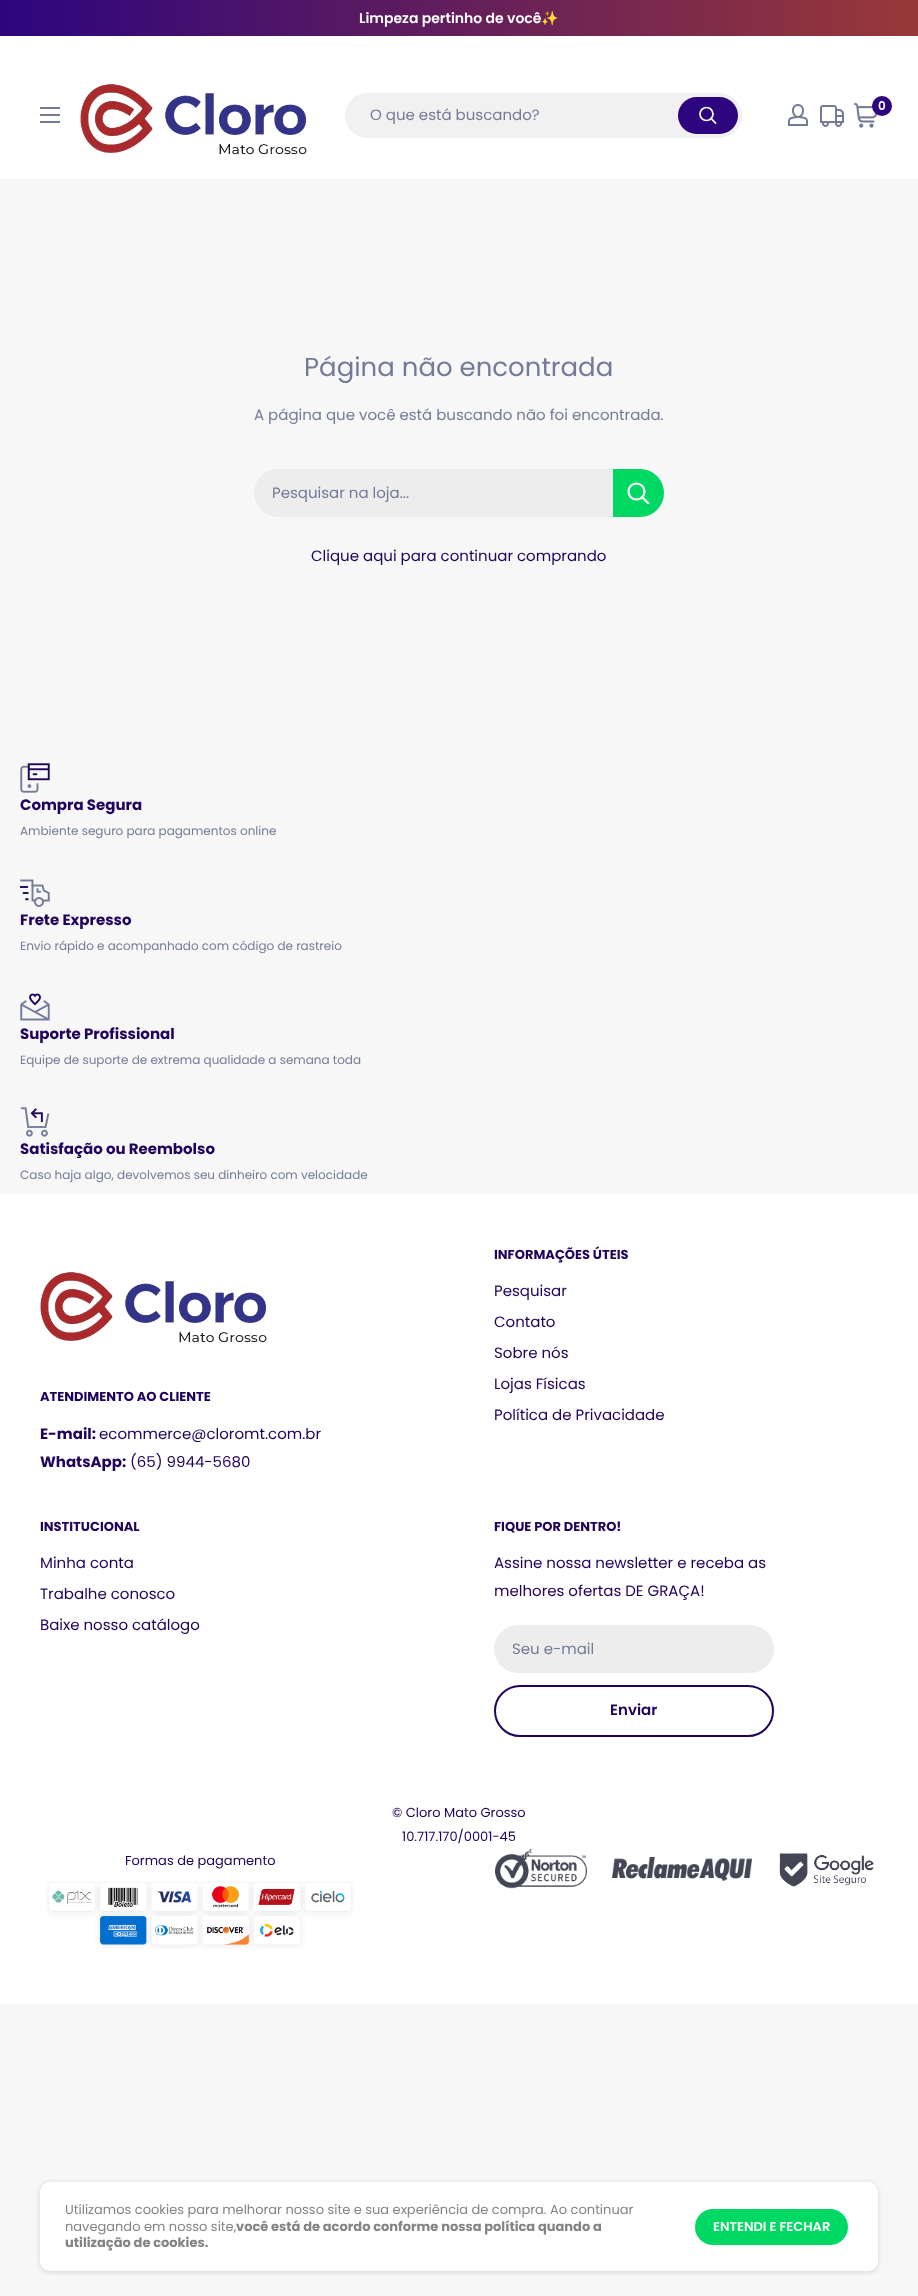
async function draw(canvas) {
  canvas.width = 918
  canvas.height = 2296
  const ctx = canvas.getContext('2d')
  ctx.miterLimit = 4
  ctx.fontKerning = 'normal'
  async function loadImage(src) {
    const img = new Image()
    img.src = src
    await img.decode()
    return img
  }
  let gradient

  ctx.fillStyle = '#f7f7f7'
  ctx.fillRect(0, 0, 918, 2296)
  gradient = ctx.createLinearGradient(0, 18, 918, 18)
  gradient.addColorStop(0, '#2d057e')
  gradient.addColorStop(1, '#993838')
  ctx.fillStyle = gradient
  ctx.fillRect(0, 0, 918, 36)
  ctx.font = '600 14px Poppins'
  ctx.fillStyle = '#fff'
  ctx.fillText('Limpeza pertinho de você', 359, 23)
  ctx.font = 'bold 14px Noto Color Emoji'
  ctx.fillText('✨', 541, 23)
  ctx.fillRect(0, 36, 918, 143)
  ctx.drawImage(await loadImage('image0.png'), 80, 84, 227, 71)
  ctx.drawImage(await loadImage('image1.png'), 788, 104, 20, 22)
  ctx.drawImage(await loadImage('image2.png'), 820, 105, 24, 22)
  ctx.drawImage(await loadImage('image3.png'), 854, 103, 24, 25)
  ctx.fillStyle = '#2d057e'
  ctx.beginPath()
  ctx.arc(882, 106, 10, 0, 2 * Math.PI)
  ctx.fill()
  ctx.font = '600 12px Poppins'
  ctx.fillStyle = '#fff'
  ctx.fillText('0', 878, 110)
  ctx.drawImage(await loadImage('image4.png'), 40, 107, 20, 16)
  ctx.fillStyle = '#f1f1f1'
  ctx.beginPath()
  ctx.roundRect(345, 93, 397, 45, 22.5)
  ctx.fill()
  ctx.font = '15px Poppins'
  ctx.fillStyle = '#737b97'
  ctx.fillText('O que está buscando?', 370, 120)
  ctx.fillStyle = '#2d057e'
  ctx.beginPath()
  ctx.roundRect(678, 97, 60, 37, 18.5)
  ctx.fill()
  ctx.beginPath()
  ctx.moveTo(715.5, 123)
  ctx.lineTo(711, 118.5)
  ctx.strokeStyle = '#fff'
  ctx.lineWidth = 1.7
  ctx.lineCap = 'square'
  ctx.stroke()
  ctx.beginPath()
  ctx.arc(706.5, 114, 6.5, 0, 2 * Math.PI)
  ctx.stroke()
  ctx.font = '26px Poppins'
  ctx.fillStyle = '#737b97'
  ctx.fillText('Página não encontrada', 304, 376)
  ctx.font = '15px Poppins'
  ctx.fillText('A página que você está buscando não foi encontrada.', 254, 420)
  ctx.fillStyle = '#ededed'
  ctx.beginPath()
  ctx.roundRect(254, 469, 359, 48, [24, 0, 0, 24])
  ctx.fill()
  ctx.fillStyle = '#737b97'
  ctx.fillText('Pesquisar na loja...', 272, 498)
  ctx.fillStyle = '#00d864'
  ctx.beginPath()
  ctx.roundRect(613, 469, 51, 48, [0, 24, 24, 0])
  ctx.fill()
  ctx.beginPath()
  ctx.moveTo(648, 503)
  ctx.lineTo(642.5, 497.5)
  ctx.lineWidth = 2.2
  ctx.stroke()
  ctx.beginPath()
  ctx.arc(636.5, 491.5, 8, 0, 2 * Math.PI)
  ctx.stroke()
  ctx.fillStyle = '#20035a'
  ctx.fillText('Clique aqui para continuar comprando', 311, 561)
  ctx.drawImage(await loadImage('image5.png'), 20, 763, 30, 30)
  ctx.font = 'bold 15px Poppins'
  ctx.fillText('Compra Segura', 20, 810)
  ctx.font = '12px Poppins'
  ctx.fillStyle = '#737b97'
  ctx.fillText('Ambiente seguro para pagamentos online', 20, 835)
  ctx.drawImage(await loadImage('image6.png'), 20, 879, 30, 28)
  ctx.font = 'bold 15px Poppins'
  ctx.fillStyle = '#20035a'
  ctx.fillText('Frete Expresso', 20, 925)
  ctx.font = '12px Poppins'
  ctx.fillStyle = '#737b97'
  ctx.fillText('Envio rápido e acompanhado com código de rastreio', 20, 950)
  ctx.drawImage(await loadImage('image7.png'), 20, 993, 30, 28)
  ctx.font = 'bold 15px Poppins'
  ctx.fillStyle = '#20035a'
  ctx.fillText('Suporte Profissional', 20, 1039)
  ctx.font = '12px Poppins'
  ctx.fillStyle = '#737b97'
  ctx.fillText('Equipe de suporte de extrema qualidade a semana toda', 20, 1064)
  ctx.drawImage(await loadImage('image8.png'), 20, 1107, 30, 30)
  ctx.font = 'bold 15px Poppins'
  ctx.fillStyle = '#20035a'
  ctx.fillText('Satisfação ou Reembolso', 20, 1154)
  ctx.font = '12px Poppins'
  ctx.fillStyle = '#737b97'
  ctx.fillText('Caso haja algo, devolvemos seu dinheiro com velocidade', 20, 1179)
  ctx.fillStyle = '#fff'
  ctx.fillRect(0, 1194, 918, 810)
  ctx.font = 'bold 13px Poppins'
  ctx.fillStyle = '#20035a'
  ctx.fillText('INFORMAÇÕES ÚTEIS', 494, 1259)
  ctx.font = '15px Poppins'
  ctx.fillText('Pesquisar', 494, 1296)
  ctx.fillText('Contato', 494, 1327)
  ctx.fillText('Sobre nós', 494, 1358)
  ctx.fillText('Lojas Físicas', 494, 1389)
  ctx.fillText('Política de Privacidade', 494, 1420)
  ctx.drawImage(await loadImage('image9.png'), 40, 1272, 227, 71)
  ctx.font = 'bold 13px Poppins'
  ctx.fillText('ATENDIMENTO AO CLIENTE', 40, 1401)
  ctx.font = 'bold 15px Poppins'
  ctx.fillText('E-mail:', 40, 1439)
  ctx.font = '15px Poppins'
  ctx.fillText('ecommerce@cloromt.com.br', 99, 1439)
  ctx.font = 'bold 15px Poppins'
  ctx.fillText('WhatsApp:', 40, 1467)
  ctx.font = '15px Poppins'
  ctx.fillText('(65) 9944-5680', 130, 1467)
  ctx.font = 'bold 13px Poppins'
  ctx.fillText('INSTITUCIONAL', 40, 1531)
  ctx.font = '15px Poppins'
  ctx.fillText('Minha conta', 40, 1568)
  ctx.fillText('Trabalhe conosco', 40, 1599)
  ctx.fillText('Baixe nosso catálogo', 40, 1630)
  ctx.font = 'bold 13px Poppins'
  ctx.fillText('FIQUE POR DENTRO!', 494, 1531)
  ctx.font = '15px Poppins'
  ctx.fillText('Assine nossa newsletter e receba as', 494, 1568)
  ctx.fillText('melhores ofertas DE GRAÇA!', 494, 1596)
  ctx.fillStyle = '#ededed'
  ctx.beginPath()
  ctx.roundRect(494, 1625, 280, 48, 24)
  ctx.fill()
  ctx.fillStyle = '#737b97'
  ctx.fillText('Seu e-mail', 512, 1654)
  ctx.beginPath()
  ctx.roundRect(495, 1686, 278, 50, 25)
  ctx.strokeStyle = '#20035a'
  ctx.lineWidth = 2
  ctx.stroke()
  ctx.font = '600 15px Poppins'
  ctx.fillStyle = '#20035a'
  ctx.fillText('Enviar', 610, 1715)
  ctx.font = '13px Poppins'
  ctx.fillText('© Cloro Mato Grosso', 392, 1817)
  ctx.fillText('10.717.170/0001-45', 402, 1841)
  ctx.fillText('Formas de pagamento', 125, 1865)
  ctx.drawImage(await loadImage('image10.png'), 46, 1881, 308, 68)
  ctx.drawImage(await loadImage('image11.png'), 495, 1849, 92, 40)
  ctx.drawImage(await loadImage('image12.png'), 612, 1857, 140, 24)
  ctx.drawImage(await loadImage('image13.png'), 779, 1853, 95, 34)
  ctx.fillStyle = '#0000001a'
  ctx.filter = 'blur(2px)'
  ctx.beginPath()
  ctx.roundRect(39, 2182, 840, 91, 11)
  ctx.fill()
  ctx.filter = 'none'
  ctx.fillStyle = '#fff'
  ctx.beginPath()
  ctx.roundRect(40, 2182, 838, 89, 10)
  ctx.fill()
  ctx.fillStyle = '#838383'
  ctx.fillText('Utilizamos cookies para melhorar nosso site e sua experiência de compra. Ao continuar', 65, 2214)
  ctx.fillText('navegando em nosso site,', 65, 2231)
  ctx.font = 'bold 13px Poppins'
  ctx.fillText('você está de acordo conforme nossa política quando a', 236, 2231)
  ctx.fillText('utilização de cookies.', 65, 2247)
  ctx.fillStyle = '#00d864'
  ctx.beginPath()
  ctx.roundRect(695, 2209, 153, 36, 18)
  ctx.fill()
  ctx.font = '600 13px Poppins'
  ctx.fillStyle = '#fff'
  ctx.fillText('ENTENDI E FECHAR', 713, 2231)
}

draw(document.querySelector('canvas'))
